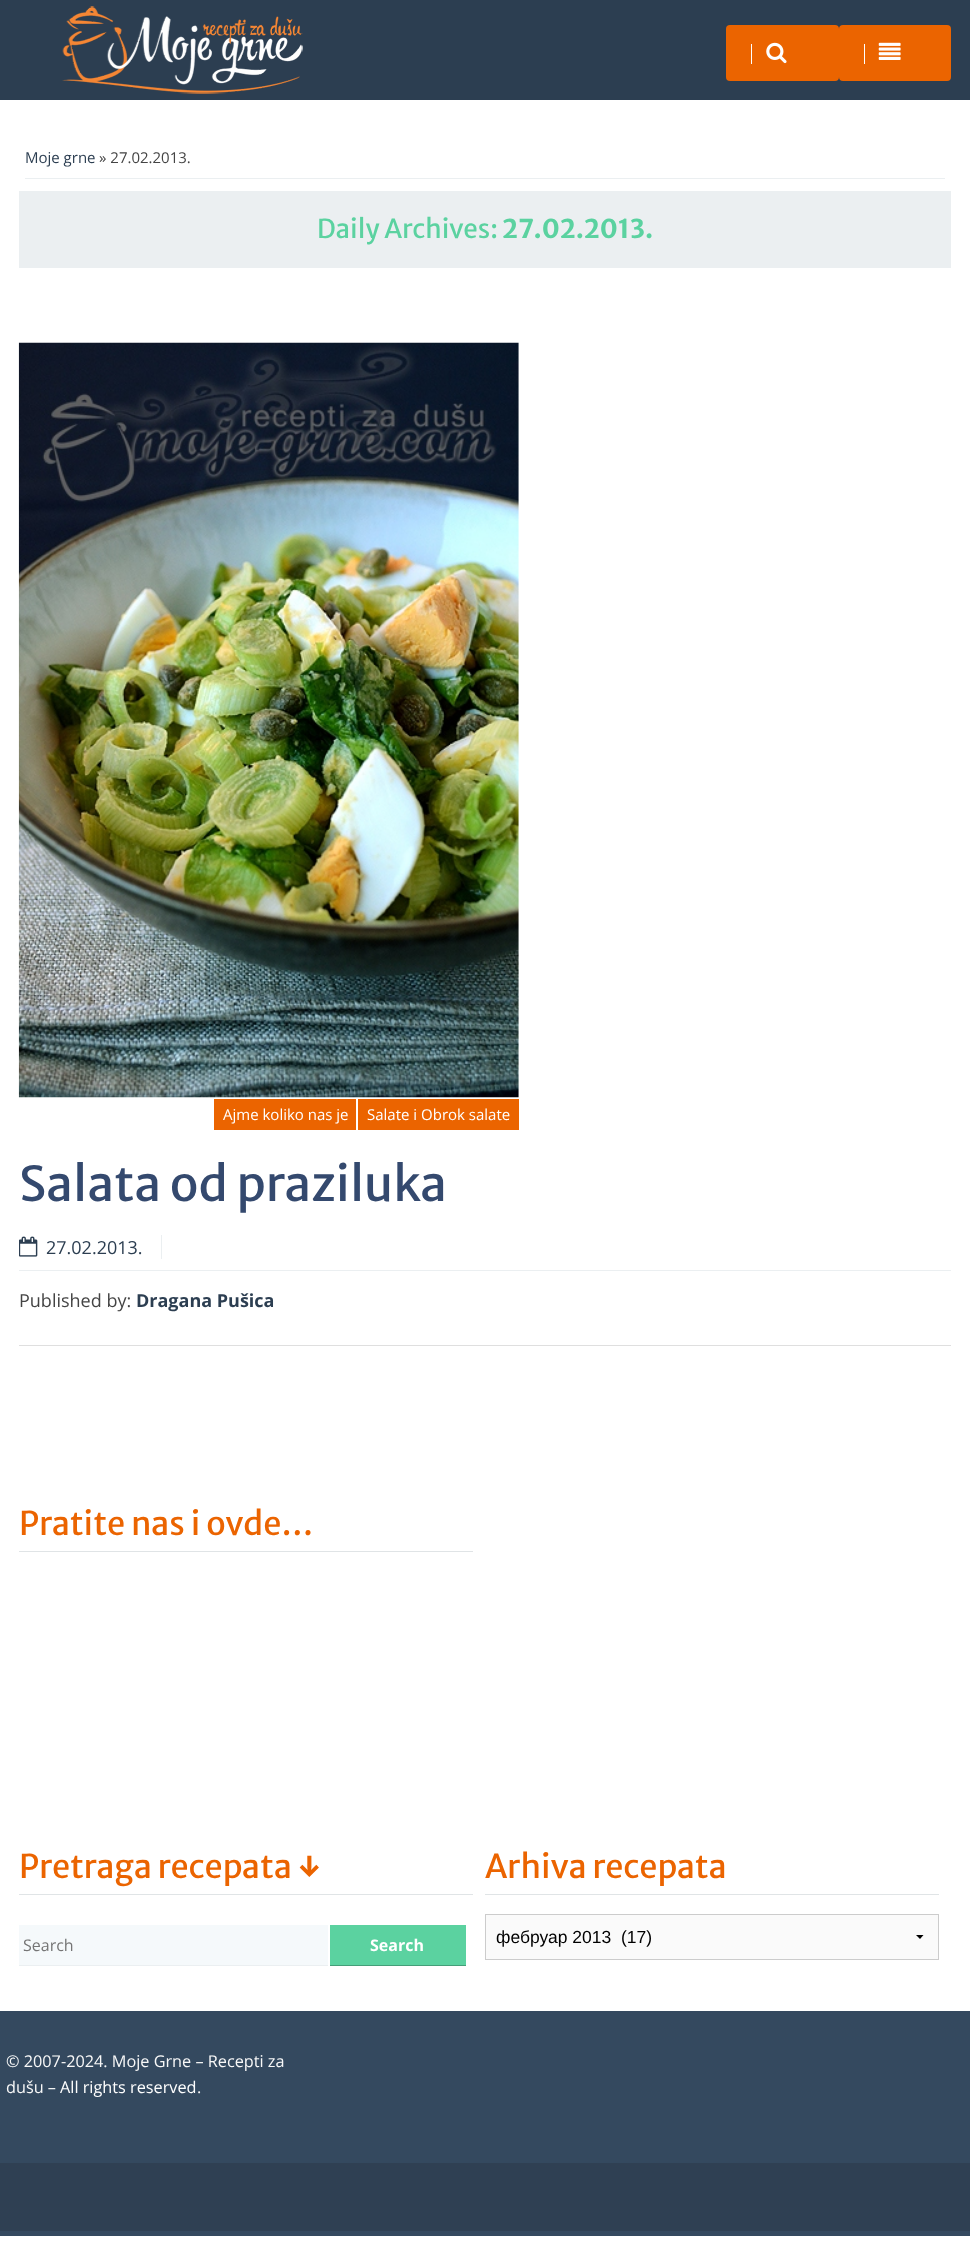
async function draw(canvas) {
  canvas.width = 970
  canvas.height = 2256
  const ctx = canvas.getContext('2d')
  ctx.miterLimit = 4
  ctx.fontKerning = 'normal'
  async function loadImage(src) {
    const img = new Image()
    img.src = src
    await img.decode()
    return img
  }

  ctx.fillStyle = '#fff'
  ctx.fillRect(0, 0, 970, 2256)
  ctx.fillStyle = '#2c3e51'
  ctx.fillRect(0, 0, 970, 100)
  ctx.drawImage(await loadImage('image0.png'), 62, 6, 241, 88)
  ctx.fillStyle = '#eb6400'
  ctx.beginPath()
  ctx.roundRect(726, 25, 113, 56, 4)
  ctx.fill()
  ctx.fillStyle = '#fff'
  ctx.fillRect(751, 44, 1, 20)
  ctx.drawImage(await loadImage('image1.png'), 766, 42, 21, 22)
  ctx.fillStyle = '#eb6400'
  ctx.beginPath()
  ctx.roundRect(839, 25, 112, 56, 4)
  ctx.fill()
  ctx.fillStyle = '#fff'
  ctx.fillRect(864, 44, 1, 20)
  ctx.drawImage(await loadImage('image2.png'), 878, 42, 23, 18)
  ctx.fillStyle = '#ebeff1'
  ctx.fillRect(25, 178, 920, 1)
  ctx.font = '15px Open Sans'
  ctx.fillStyle = '#2c3e51'
  ctx.fillText('Moje grne', 25, 163)
  ctx.fillStyle = '#444'
  ctx.fillText('» 27.02.2013.', 99, 163)
  ctx.fillStyle = '#ebeff1'
  ctx.fillRect(19, 191, 932, 77)
  ctx.font = '26px Merriweather Sans'
  ctx.fillStyle = '#5bd2a0'
  ctx.fillText('Daily Archives:', 317, 238)
  ctx.font = 'bold 26px Merriweather Sans'
  ctx.fillText('27.02.2013.', 502, 238)
  ctx.drawImage(await loadImage('image3.png'), 18, 342, 501, 756)
  ctx.fillStyle = '#eb6400'
  ctx.fillRect(214, 1099, 142, 31)
  ctx.font = '15px Open Sans'
  ctx.fillStyle = '#fff'
  ctx.fillText('Ajme koliko nas je', 223, 1120)
  ctx.fillStyle = '#eb6400'
  ctx.fillRect(358, 1099, 161, 31)
  ctx.fillStyle = '#fff'
  ctx.fillText('Salate i Obrok salate', 367, 1120)
  ctx.font = '48px Merriweather Sans'
  ctx.fillStyle = '#34496e'
  ctx.fillText('Salata od praziluka', 19, 1201)
  ctx.fillStyle = '#ebeff1'
  ctx.fillRect(19, 1270, 932, 1)
  ctx.fillRect(161, 1235, 1, 24)
  ctx.drawImage(await loadImage('image4.png'), 19, 1236, 19, 21)
  ctx.font = '18px Open Sans'
  ctx.fillStyle = '#2c3e51'
  ctx.fillText('27.02.2013.', 46, 1254)
  ctx.fillStyle = '#444'
  ctx.fillText('Published by:', 19, 1307)
  ctx.font = 'bold 18px Open Sans'
  ctx.fillStyle = '#2c3e51'
  ctx.fillText('Dragana Pušica', 136, 1307)
  ctx.fillStyle = '#dfdfdf'
  ctx.fillRect(19, 1345, 932, 1)
  ctx.fillStyle = '#e0e4e6'
  ctx.fillRect(19, 1551, 454, 1)
  ctx.font = '32.5px Merriweather Sans'
  ctx.fillStyle = '#eb6400'
  ctx.fillText('Pratite nas i ovde…', 19, 1535)
  ctx.fillStyle = '#e0e4e6'
  ctx.fillRect(19, 1894, 454, 1)
  ctx.fillStyle = '#eb6400'
  ctx.fillText('Pretraga recepata ↓', 19, 1878)
  ctx.fillStyle = '#f5f9fb'
  ctx.fillRect(19, 1925, 309, 40)
  ctx.fillStyle = '#ebeff1'
  ctx.fillRect(19, 1965, 309, 1)
  ctx.font = '16px Open Sans'
  ctx.fillStyle = '#757575'
  ctx.fillText('Search', 23, 1951)
  ctx.fillStyle = '#5bd2a0'
  ctx.fillRect(330, 1925, 136, 40)
  ctx.fillStyle = '#449e78'
  ctx.fillRect(330, 1965, 136, 1)
  ctx.font = 'bold 16px Open Sans'
  ctx.fillStyle = '#fff'
  ctx.fillText('Search', 370, 1951)
  ctx.fillStyle = '#e0e4e6'
  ctx.fillRect(485, 1894, 454, 1)
  ctx.font = '32.5px Merriweather Sans'
  ctx.fillStyle = '#eb6400'
  ctx.fillText('Arhiva recepata', 485, 1878)
  ctx.fillStyle = '#fafafa'
  ctx.fillRect(486, 1915, 452, 44)
  ctx.fillStyle = '#000'
  ctx.beginPath()
  ctx.moveTo(923.5, 1935)
  ctx.lineTo(920, 1939)
  ctx.lineTo(916, 1935)
  ctx.closePath()
  ctx.fill()
  ctx.strokeStyle = '#ccc'
  ctx.strokeRect(485.5, 1914.5, 453, 45)
  ctx.font = '17.5px Liberation Sans'
  ctx.fillText('фебруар 2013  (17)', 496, 1943)
  ctx.fillStyle = '#34495f'
  ctx.fillRect(0, 2011, 970, 225)
  ctx.font = '16.25px Open Sans'
  ctx.fillStyle = '#f8f8f8'
  ctx.fillText('© 2007-2024. Moje Grne – Recepti za', 6, 2067)
  ctx.fillText('dušu –', 6, 2093)
  ctx.fillStyle = '#fff'
  ctx.fillText('All rights reserved', 60, 2093)
  ctx.fillStyle = '#f8f8f8'
  ctx.fillText('.', 197, 2093)
  ctx.fillStyle = '#2f4053'
  ctx.fillRect(0, 2163, 970, 68)
}

draw(document.querySelector('canvas'))
